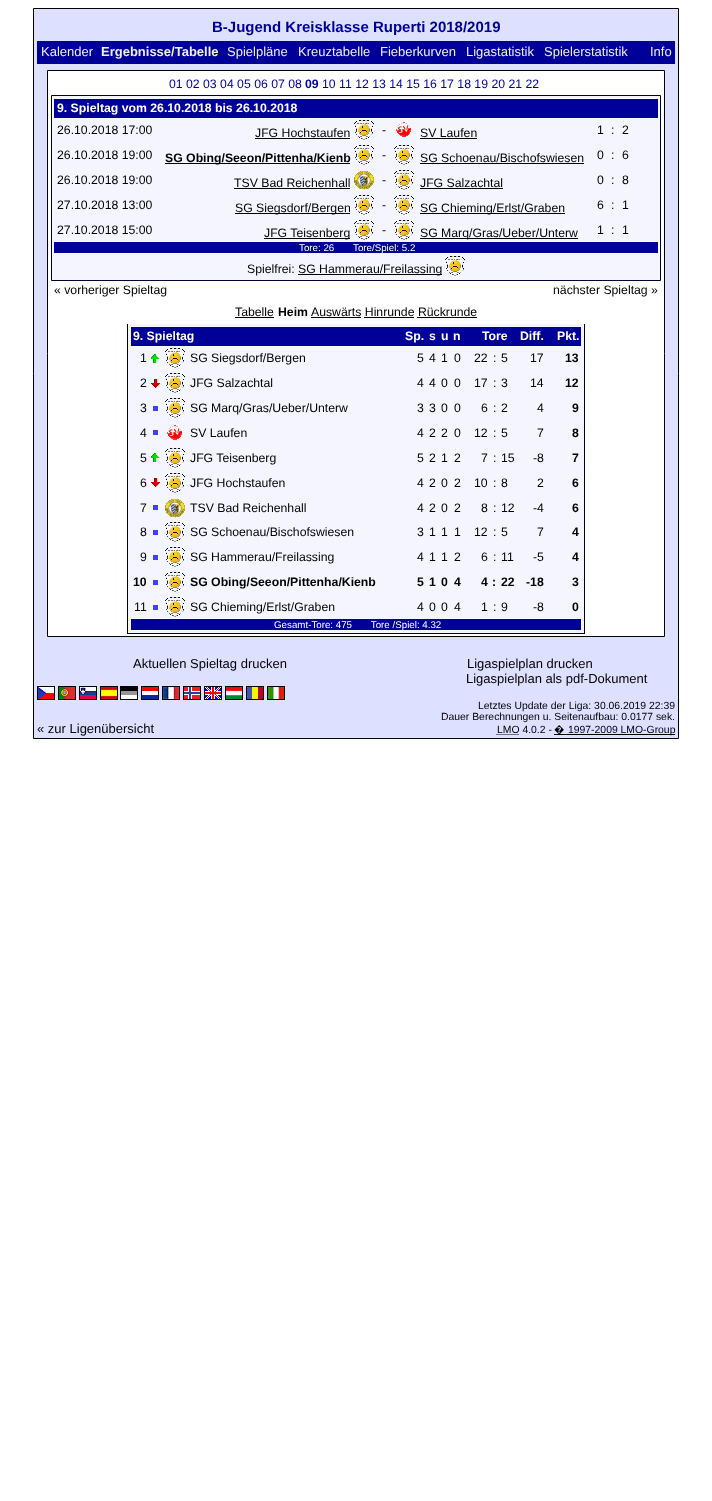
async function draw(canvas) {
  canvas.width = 712
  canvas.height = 1501
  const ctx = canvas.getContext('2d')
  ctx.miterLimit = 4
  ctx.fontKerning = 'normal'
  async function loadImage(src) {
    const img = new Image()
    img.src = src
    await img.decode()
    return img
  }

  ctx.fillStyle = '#fff'
  ctx.fillRect(0, 0, 712, 1501)
  ctx.fillStyle = '#dde0ff'
  ctx.beginPath()
  ctx.rect(33.5, 8.5, 645, 730)
  ctx.fill()
  ctx.strokeStyle = '#000'
  ctx.stroke()
  ctx.font = 'bold 15px Liberation Sans'
  ctx.fillStyle = '#009'
  ctx.fillText('B-Jugend Kreisklasse Ruperti 2018/2019', 212, 32)
  ctx.fillRect(37, 41, 638, 23)
  ctx.font = '13px Liberation Sans'
  ctx.fillStyle = '#eee'
  ctx.fillText('Kalender', 41, 56)
  ctx.font = 'bold 13px Liberation Sans'
  ctx.fillText('Ergebnisse/Tabelle', 101, 56)
  ctx.font = '13px Liberation Sans'
  ctx.fillText('Spielpläne', 227, 56)
  ctx.fillText('Kreuztabelle', 298, 56)
  ctx.fillText('Fieberkurven', 380, 56)
  ctx.fillText('Ligastatistik', 466, 56)
  ctx.fillText('Spielerstatistik', 544, 56)
  ctx.fillText('Info', 650, 56)
  ctx.fillStyle = '#fff'
  ctx.beginPath()
  ctx.rect(47.5, 70.5, 617, 566)
  ctx.fill()
  ctx.stroke()
  ctx.font = '12.25px Liberation Sans'
  ctx.fillStyle = '#009'
  ctx.fillText('01 02 03 04 05 06 07 08', 169, 88)
  ctx.font = 'bold 12.25px Liberation Sans'
  ctx.fillText('09', 305, 88)
  ctx.font = '12.25px Liberation Sans'
  ctx.fillText('10 11 12 13 14 15 16 17 18 19 20 21 22', 322, 88)
  ctx.fillStyle = '#f5f5ff'
  ctx.beginPath()
  ctx.rect(51.5, 95.5, 609, 185)
  ctx.fill()
  ctx.strokeStyle = '#003'
  ctx.stroke()
  ctx.fillStyle = '#009'
  ctx.fillRect(54, 99, 604, 19)
  ctx.font = 'bold 12.25px Liberation Sans'
  ctx.fillStyle = '#fff'
  ctx.fillText('9. Spieltag vom 26.10.2018 bis 26.10.2018', 57, 112)
  ctx.font = '12.25px Liberation Sans'
  ctx.fillStyle = '#000'
  ctx.fillText('26.10.2018 17:00', 57, 134)
  ctx.fillText('JFG Hochstaufen', 255, 137)
  ctx.fillRect(255, 138, 95, 1)
  ctx.drawImage(await loadImage('image0.png'), 354, 120, 20, 20)
  ctx.fillText('-', 382, 134)
  ctx.drawImage(await loadImage('image1.png'), 396, 122, 15, 15)
  ctx.fillText('SV Laufen', 420, 137)
  ctx.fillRect(420, 138, 57, 1)
  ctx.fillText('1', 597, 134)
  ctx.fillText(':', 611, 134)
  ctx.fillText('2', 622, 134)
  ctx.fillText('26.10.2018 19:00', 57, 159)
  ctx.fillRect(165, 163, 185, 1)
  ctx.font = 'bold 12.25px Liberation Sans'
  ctx.fillText('SG Obing/Seeon/Pittenha/Kienb', 165, 162)
  ctx.drawImage(await loadImage('image0.png'), 354, 145, 20, 20)
  ctx.font = '12.25px Liberation Sans'
  ctx.fillText('-', 382, 159)
  ctx.drawImage(await loadImage('image0.png'), 394, 145, 20, 20)
  ctx.fillText('SG Schoenau/Bischofswiesen', 420, 162)
  ctx.fillRect(420, 163, 164, 1)
  ctx.fillText('0', 597, 159)
  ctx.fillText(':', 611, 159)
  ctx.fillText('6', 622, 159)
  ctx.fillText('26.10.2018 19:00', 57, 184)
  ctx.fillText('TSV Bad Reichenhall', 234, 187)
  ctx.fillRect(234, 188, 116, 1)
  ctx.drawImage(await loadImage('image2.png'), 354, 171, 20, 19)
  ctx.fillText('-', 382, 184)
  ctx.drawImage(await loadImage('image0.png'), 394, 170, 20, 20)
  ctx.fillText('JFG Salzachtal', 420, 187)
  ctx.fillRect(420, 188, 83, 1)
  ctx.fillText('0', 597, 184)
  ctx.fillText(':', 611, 184)
  ctx.fillText('8', 622, 184)
  ctx.fillText('27.10.2018 13:00', 57, 209)
  ctx.fillRect(235, 213, 115, 1)
  ctx.fillText('SG Siegsdorf/Bergen', 235, 212)
  ctx.drawImage(await loadImage('image0.png'), 354, 195, 20, 20)
  ctx.fillText('-', 382, 209)
  ctx.drawImage(await loadImage('image0.png'), 394, 195, 20, 20)
  ctx.fillRect(420, 213, 145, 1)
  ctx.fillText('SG Chieming/Erlst/Graben', 420, 212)
  ctx.fillText('6', 597, 209)
  ctx.fillText(':', 611, 209)
  ctx.fillText('1', 622, 209)
  ctx.fillText('27.10.2018 15:00', 57, 234)
  ctx.fillRect(264, 238, 86, 1)
  ctx.fillText('JFG Teisenberg', 264, 237)
  ctx.drawImage(await loadImage('image0.png'), 354, 220, 20, 20)
  ctx.fillText('-', 382, 234)
  ctx.drawImage(await loadImage('image0.png'), 394, 220, 20, 20)
  ctx.fillRect(420, 238, 158, 1)
  ctx.fillText('SG Marq/Gras/Ueber/Unterw', 420, 237)
  ctx.fillText('1', 597, 234)
  ctx.fillText(':', 611, 234)
  ctx.fillText('1', 622, 234)
  ctx.fillStyle = '#009'
  ctx.fillRect(54, 242, 604, 11)
  ctx.font = '9.75px Liberation Sans'
  ctx.fillStyle = '#fff'
  ctx.fillText('Tore: 26       Tore/Spiel: 5.2', 299, 251)
  ctx.font = '12.25px Liberation Sans'
  ctx.fillStyle = '#000'
  ctx.fillText('Spielfrei:', 247, 273)
  ctx.fillRect(298, 274, 144, 1)
  ctx.fillText('SG Hammerau/Freilassing', 298, 273)
  ctx.drawImage(await loadImage('image0.png'), 445, 256, 20, 20)
  ctx.fillText('« vorheriger Spieltag', 54, 294)
  ctx.fillText('nächster Spieltag »', 553, 294)
  ctx.fillStyle = '#f5f5ff'
  ctx.fillRect(128, 324, 456, 309)
  ctx.strokeRect(127.5, 300.5, 457, 333)
  ctx.fillStyle = '#fff'
  ctx.fillRect(127, 300, 458, 24)
  ctx.fillStyle = '#000'
  ctx.fillText('Tabelle', 235, 316)
  ctx.fillRect(235, 317, 39, 1)
  ctx.font = 'bold 12.25px Liberation Sans'
  ctx.fillText('Heim', 278, 316)
  ctx.font = '12.25px Liberation Sans'
  ctx.fillText('Auswärts Hinrunde Rückrunde', 311, 316)
  ctx.fillRect(311, 317, 50, 1)
  ctx.fillRect(364, 317, 50, 1)
  ctx.fillRect(417, 317, 60, 1)
  ctx.fillStyle = '#009'
  ctx.fillRect(131, 327, 450, 19)
  ctx.font = 'bold 12.25px Liberation Sans'
  ctx.fillStyle = '#fff'
  ctx.fillText('9. Spieltag', 133, 340)
  ctx.fillText('Sp.', 405, 340)
  ctx.fillText('s', 429, 340)
  ctx.fillText('u', 441, 340)
  ctx.fillText('n', 453, 340)
  ctx.fillText('Tore', 482, 340)
  ctx.fillText('Diff.', 520, 340)
  ctx.fillText('Pkt.', 557, 340)
  ctx.font = '12.25px Liberation Sans'
  ctx.fillStyle = '#000'
  ctx.fillText('1', 140, 362)
  ctx.drawImage(await loadImage('image3.png'), 151, 354, 9, 9)
  ctx.drawImage(await loadImage('image0.png'), 165, 348, 20, 20)
  ctx.fillText('SG Siegsdorf/Bergen', 190, 362)
  ctx.fillText('5', 417, 362)
  ctx.fillText('4', 429, 362)
  ctx.fillText('1', 441, 362)
  ctx.fillText('0', 454, 362)
  ctx.fillText('22', 474, 362)
  ctx.fillText(':', 493, 362)
  ctx.fillText('5', 501, 362)
  ctx.fillText('17', 530, 362)
  ctx.font = 'bold 12.25px Liberation Sans'
  ctx.fillText('13', 565, 362)
  ctx.font = '12.25px Liberation Sans'
  ctx.fillText('2', 140, 387)
  ctx.drawImage(await loadImage('image4.png'), 151, 379, 9, 9)
  ctx.drawImage(await loadImage('image0.png'), 165, 373, 20, 20)
  ctx.fillText('JFG Salzachtal', 190, 387)
  ctx.fillText('4', 417, 387)
  ctx.fillText('4', 429, 387)
  ctx.fillText('0', 441, 387)
  ctx.fillText('0', 454, 387)
  ctx.fillText('17', 474, 387)
  ctx.fillText(':', 493, 387)
  ctx.fillText('3', 501, 387)
  ctx.fillText('14', 530, 387)
  ctx.font = 'bold 12.25px Liberation Sans'
  ctx.fillText('12', 565, 387)
  ctx.font = '12.25px Liberation Sans'
  ctx.fillText('3', 140, 412)
  ctx.fillStyle = '#4040ff'
  ctx.fillRect(153, 406, 5, 5)
  ctx.drawImage(await loadImage('image0.png'), 165, 398, 20, 20)
  ctx.fillStyle = '#000'
  ctx.fillText('SG Marq/Gras/Ueber/Unterw', 190, 412)
  ctx.fillText('3', 417, 412)
  ctx.fillText('3', 429, 412)
  ctx.fillText('0', 441, 412)
  ctx.fillText('0', 454, 412)
  ctx.fillText('6', 481, 412)
  ctx.fillText(':', 493, 412)
  ctx.fillText('2', 501, 412)
  ctx.fillText('4', 537, 412)
  ctx.font = 'bold 12.25px Liberation Sans'
  ctx.fillText('9', 572, 412)
  ctx.font = '12.25px Liberation Sans'
  ctx.fillText('4', 140, 437)
  ctx.fillStyle = '#4040ff'
  ctx.fillRect(153, 430, 5, 5)
  ctx.drawImage(await loadImage('image1.png'), 167, 425, 15, 15)
  ctx.fillStyle = '#000'
  ctx.fillText('SV Laufen', 190, 437)
  ctx.fillText('4', 417, 437)
  ctx.fillText('2', 429, 437)
  ctx.fillText('2', 441, 437)
  ctx.fillText('0', 454, 437)
  ctx.fillText('12', 474, 437)
  ctx.fillText(':', 493, 437)
  ctx.fillText('5', 501, 437)
  ctx.fillText('7', 537, 437)
  ctx.font = 'bold 12.25px Liberation Sans'
  ctx.fillText('8', 572, 437)
  ctx.font = '12.25px Liberation Sans'
  ctx.fillText('5', 140, 462)
  ctx.drawImage(await loadImage('image3.png'), 151, 453, 9, 9)
  ctx.drawImage(await loadImage('image0.png'), 165, 448, 20, 20)
  ctx.fillText('JFG Teisenberg', 190, 462)
  ctx.fillText('5', 417, 462)
  ctx.fillText('2', 429, 462)
  ctx.fillText('1', 441, 462)
  ctx.fillText('2', 454, 462)
  ctx.fillText('7', 481, 462)
  ctx.fillText(':', 493, 462)
  ctx.fillText('15', 501, 462)
  ctx.fillText('-8', 533, 462)
  ctx.font = 'bold 12.25px Liberation Sans'
  ctx.fillText('7', 572, 462)
  ctx.font = '12.25px Liberation Sans'
  ctx.fillText('6', 140, 487)
  ctx.drawImage(await loadImage('image4.png'), 151, 478, 9, 9)
  ctx.drawImage(await loadImage('image0.png'), 165, 473, 20, 20)
  ctx.fillText('JFG Hochstaufen', 190, 487)
  ctx.fillText('4', 417, 487)
  ctx.fillText('2', 429, 487)
  ctx.fillText('0', 441, 487)
  ctx.fillText('2', 454, 487)
  ctx.fillText('10', 474, 487)
  ctx.fillText(':', 493, 487)
  ctx.fillText('8', 501, 487)
  ctx.fillText('2', 537, 487)
  ctx.font = 'bold 12.25px Liberation Sans'
  ctx.fillText('6', 572, 487)
  ctx.font = '12.25px Liberation Sans'
  ctx.fillText('7', 140, 512)
  ctx.fillStyle = '#4040ff'
  ctx.fillRect(153, 505, 5, 5)
  ctx.drawImage(await loadImage('image2.png'), 165, 499, 20, 19)
  ctx.fillStyle = '#000'
  ctx.fillText('TSV Bad Reichenhall', 190, 512)
  ctx.fillText('4', 417, 512)
  ctx.fillText('2', 429, 512)
  ctx.fillText('0', 441, 512)
  ctx.fillText('2', 454, 512)
  ctx.fillText('8', 481, 512)
  ctx.fillText(':', 493, 512)
  ctx.fillText('12', 501, 512)
  ctx.fillText('-4', 533, 512)
  ctx.font = 'bold 12.25px Liberation Sans'
  ctx.fillText('6', 572, 512)
  ctx.font = '12.25px Liberation Sans'
  ctx.fillText('8', 140, 536)
  ctx.fillStyle = '#4040ff'
  ctx.fillRect(153, 530, 5, 5)
  ctx.drawImage(await loadImage('image0.png'), 165, 522, 20, 20)
  ctx.fillStyle = '#000'
  ctx.fillText('SG Schoenau/Bischofswiesen', 190, 536)
  ctx.fillText('3', 417, 536)
  ctx.fillText('1', 429, 536)
  ctx.fillText('1', 441, 536)
  ctx.fillText('1', 454, 536)
  ctx.fillText('12', 474, 536)
  ctx.fillText(':', 493, 536)
  ctx.fillText('5', 501, 536)
  ctx.fillText('7', 537, 536)
  ctx.font = 'bold 12.25px Liberation Sans'
  ctx.fillText('4', 572, 536)
  ctx.font = '12.25px Liberation Sans'
  ctx.fillText('9', 140, 561)
  ctx.fillStyle = '#4040ff'
  ctx.fillRect(153, 555, 5, 5)
  ctx.drawImage(await loadImage('image0.png'), 165, 547, 20, 20)
  ctx.fillStyle = '#000'
  ctx.fillText('SG Hammerau/Freilassing', 190, 561)
  ctx.fillText('4', 417, 561)
  ctx.fillText('1', 429, 561)
  ctx.fillText('1', 441, 561)
  ctx.fillText('2', 454, 561)
  ctx.fillText('6', 481, 561)
  ctx.fillText(':', 493, 561)
  ctx.fillText('11', 501, 561)
  ctx.fillText('-5', 533, 561)
  ctx.font = 'bold 12.25px Liberation Sans'
  ctx.fillText('4', 572, 561)
  ctx.fillText('10', 133, 586)
  ctx.fillStyle = '#4040ff'
  ctx.fillRect(153, 580, 5, 5)
  ctx.drawImage(await loadImage('image0.png'), 165, 572, 20, 20)
  ctx.fillStyle = '#000'
  ctx.fillText('SG Obing/Seeon/Pittenha/Kienb', 190, 586)
  ctx.fillText('5', 417, 586)
  ctx.fillText('1', 429, 586)
  ctx.fillText('0', 441, 586)
  ctx.fillText('4', 454, 586)
  ctx.fillText('4', 481, 586)
  ctx.fillText(':', 492, 586)
  ctx.fillText('22', 501, 586)
  ctx.fillText('-18', 526, 586)
  ctx.fillText('3', 572, 586)
  ctx.font = '12.25px Liberation Sans'
  ctx.fillText('11', 134, 611)
  ctx.fillStyle = '#4040ff'
  ctx.fillRect(153, 605, 5, 5)
  ctx.drawImage(await loadImage('image0.png'), 165, 597, 20, 20)
  ctx.fillStyle = '#000'
  ctx.fillText('SG Chieming/Erlst/Graben', 190, 611)
  ctx.fillText('4', 417, 611)
  ctx.fillText('0', 429, 611)
  ctx.fillText('0', 441, 611)
  ctx.fillText('4', 454, 611)
  ctx.fillText('1', 481, 611)
  ctx.fillText(':', 493, 611)
  ctx.fillText('9', 501, 611)
  ctx.fillText('-8', 533, 611)
  ctx.font = 'bold 12.25px Liberation Sans'
  ctx.fillText('0', 572, 611)
  ctx.fillStyle = '#009'
  ctx.fillRect(131, 619, 450, 11)
  ctx.font = '9.75px Liberation Sans'
  ctx.fillStyle = '#fff'
  ctx.fillText('Gesamt-Tore: 475       Tore /Spiel: 4.32', 274, 628)
  ctx.font = '13px Liberation Sans'
  ctx.fillStyle = '#000'
  ctx.fillText('Aktuellen Spieltag drucken', 133, 668)
  ctx.fillText('Ligaspielplan drucken', 467, 668)
  ctx.fillText('Ligaspielplan als pdf-Dokument', 466, 683)
  ctx.strokeStyle = '#000'
  ctx.strokeRect(37.5, 686.5, 17, 13)
  ctx.strokeRect(58.5, 686.5, 17, 13)
  ctx.strokeRect(79.5, 686.5, 17, 13)
  ctx.strokeRect(100.5, 686.5, 17, 13)
  ctx.strokeRect(120.5, 686.5, 17, 13)
  ctx.strokeRect(141.5, 686.5, 17, 13)
  ctx.strokeRect(162.5, 686.5, 17, 13)
  ctx.strokeRect(183.5, 686.5, 17, 13)
  ctx.strokeRect(204.5, 686.5, 17, 13)
  ctx.strokeRect(225.5, 686.5, 17, 13)
  ctx.strokeRect(246.5, 686.5, 17, 13)
  ctx.strokeRect(267.5, 686.5, 17, 13)
  ctx.drawImage(await loadImage('image5.png'), 38, 687, 16, 12)
  ctx.drawImage(await loadImage('image6.png'), 59, 687, 16, 12)
  ctx.drawImage(await loadImage('image7.png'), 80, 687, 16, 12)
  ctx.drawImage(await loadImage('image8.png'), 101, 687, 16, 12)
  ctx.drawImage(await loadImage('image9.png'), 121, 687, 16, 12)
  ctx.drawImage(await loadImage('image10.png'), 142, 687, 16, 12)
  ctx.drawImage(await loadImage('image11.png'), 163, 687, 16, 12)
  ctx.drawImage(await loadImage('image12.png'), 184, 687, 16, 12)
  ctx.drawImage(await loadImage('image13.png'), 205, 687, 16, 12)
  ctx.drawImage(await loadImage('image14.png'), 226, 687, 16, 12)
  ctx.drawImage(await loadImage('image15.png'), 247, 687, 16, 12)
  ctx.drawImage(await loadImage('image16.png'), 268, 687, 16, 12)
  ctx.fillText('« zur Ligenübersicht', 37, 733)
  ctx.font = '10.4px Liberation Sans'
  ctx.fillText('Letztes Update der Liga: 30.06.2019 22:39', 478, 709)
  ctx.fillText('Dauer Berechnungen u. Seitenaufbau: 0.0177 sek.', 441, 720)
  ctx.fillText('LMO 4.0.2 -', 497, 733)
  ctx.beginPath()
  ctx.moveTo(496.5, 734.5)
  ctx.lineTo(519, 734.5)
  ctx.setLineDash([1, 1])
  ctx.stroke()
  ctx.fillRect(554, 734, 121, 1)
  ctx.font = '10.4px Noto Sans'
  ctx.fillText('�', 554, 733)
  ctx.font = '10.4px Liberation Sans'
  ctx.fillText('1997-2009 LMO-Group', 568, 733)
}

draw(document.querySelector('canvas'))
